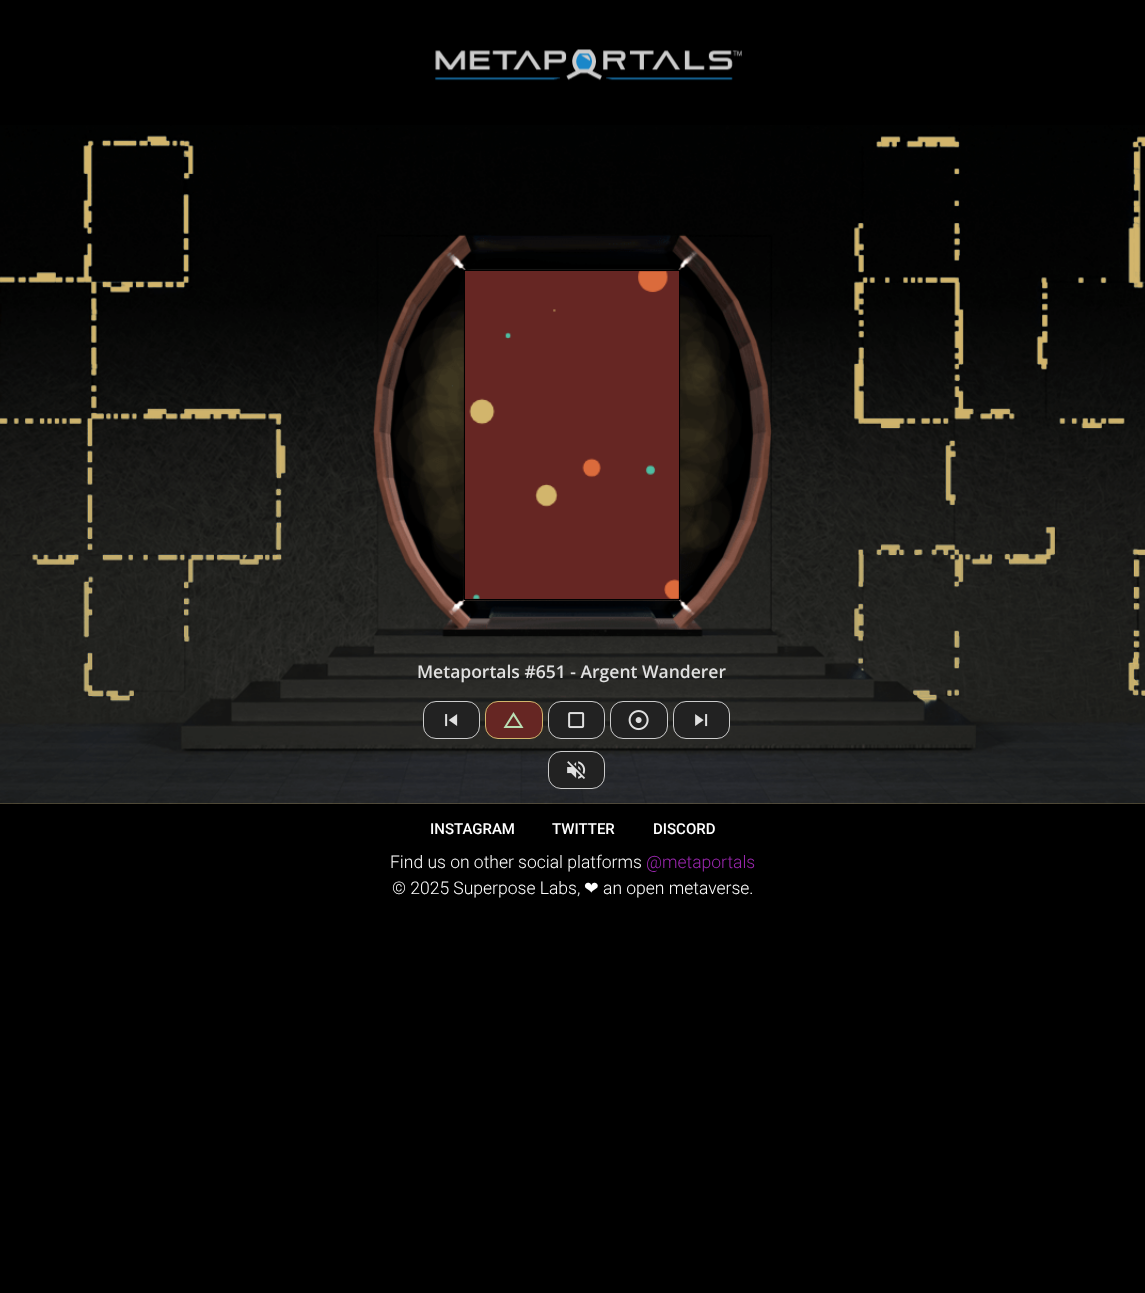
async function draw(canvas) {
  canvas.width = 1145
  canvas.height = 1293
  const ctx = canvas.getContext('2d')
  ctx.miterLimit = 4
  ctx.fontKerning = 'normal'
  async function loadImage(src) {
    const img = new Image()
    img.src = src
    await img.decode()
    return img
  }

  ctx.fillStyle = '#000'
  ctx.fillRect(0, 0, 1145, 1293)
  ctx.drawImage(await loadImage('image0.png'), 435, 49, 307, 32)
  ctx.fillStyle = '#d2b56c'
  ctx.fillRect(0, 135, 1145, 669)
  ctx.drawImage(await loadImage('image1.png'), 0, 125, 1145, 679)
  ctx.strokeStyle = '#000'
  ctx.strokeRect(464.5, 270.5, 215, 329)
  ctx.fillStyle = '#662623'
  ctx.fillRect(465, 271, 214, 328)
  ctx.drawImage(await loadImage('image2.png'), 469, 271, 210, 328)
  ctx.font = '600 17.5px Open Sans'
  ctx.fillStyle = '#e0e0e0'
  ctx.fillText('Metaportals #651 - Argent Wanderer', 417, 678)
  ctx.fillStyle = '#222'
  ctx.beginPath()
  ctx.roundRect(423.5, 701.5, 56, 37, 12.5)
  ctx.fill()
  ctx.strokeStyle = '#ccc'
  ctx.stroke()
  ctx.drawImage(await loadImage('image3.png'), 445, 714, 13, 13)
  ctx.fillStyle = '#662623'
  ctx.beginPath()
  ctx.roundRect(485.5, 701.5, 57, 37, 12.5)
  ctx.fill()
  ctx.strokeStyle = '#d2b56c'
  ctx.stroke()
  ctx.fillStyle = '#b9deb3'
  ctx.beginPath()
  ctx.moveTo(513.5, 716)
  ctx.lineTo(520, 726)
  ctx.lineTo(507, 726)
  ctx.lineTo(513.5, 716)
  ctx.moveTo(513.5, 712)
  ctx.lineTo(503.5, 728)
  ctx.lineTo(523.5, 728)
  ctx.closePath()
  ctx.fill()
  ctx.fillStyle = '#222'
  ctx.beginPath()
  ctx.roundRect(548.5, 701.5, 56, 37, 12.5)
  ctx.fill()
  ctx.strokeStyle = '#ccc'
  ctx.stroke()
  ctx.drawImage(await loadImage('image4.png'), 568, 712, 17, 17)
  ctx.beginPath()
  ctx.roundRect(610.5, 701.5, 57, 37, 12.5)
  ctx.fill()
  ctx.stroke()
  ctx.drawImage(await loadImage('image5.png'), 628, 710, 21, 21)
  ctx.beginPath()
  ctx.roundRect(673.5, 701.5, 56, 37, 12.5)
  ctx.fill()
  ctx.stroke()
  ctx.drawImage(await loadImage('image6.png'), 695, 714, 13, 13)
  ctx.beginPath()
  ctx.roundRect(548.5, 751.5, 56, 37, 12.5)
  ctx.fill()
  ctx.stroke()
  ctx.drawImage(await loadImage('image7.png'), 567, 761, 19, 18)
  ctx.font = '500 15px Roboto'
  ctx.fillStyle = '#fff'
  ctx.fillText('INSTAGRAM', 430, 834)
  ctx.fillText('TWITTER', 552, 834)
  ctx.fillText('DISCORD', 653, 834)
  ctx.font = '300 17.5px Roboto'
  ctx.fillText('Find us on other social platforms', 390, 868)
  ctx.fillStyle = '#9c27b0'
  ctx.fillText('@metaportals', 646, 868)
  ctx.fillStyle = '#fff'
  ctx.fillText('© 2025 Superpose Labs,', 392, 894)
  ctx.font = '17.5px DejaVu Sans'
  ctx.fillText('❤', 584, 894)
  ctx.font = '300 17.5px Roboto'
  ctx.fillText('an open metaverse.', 603, 894)
}

draw(document.querySelector('canvas'))
